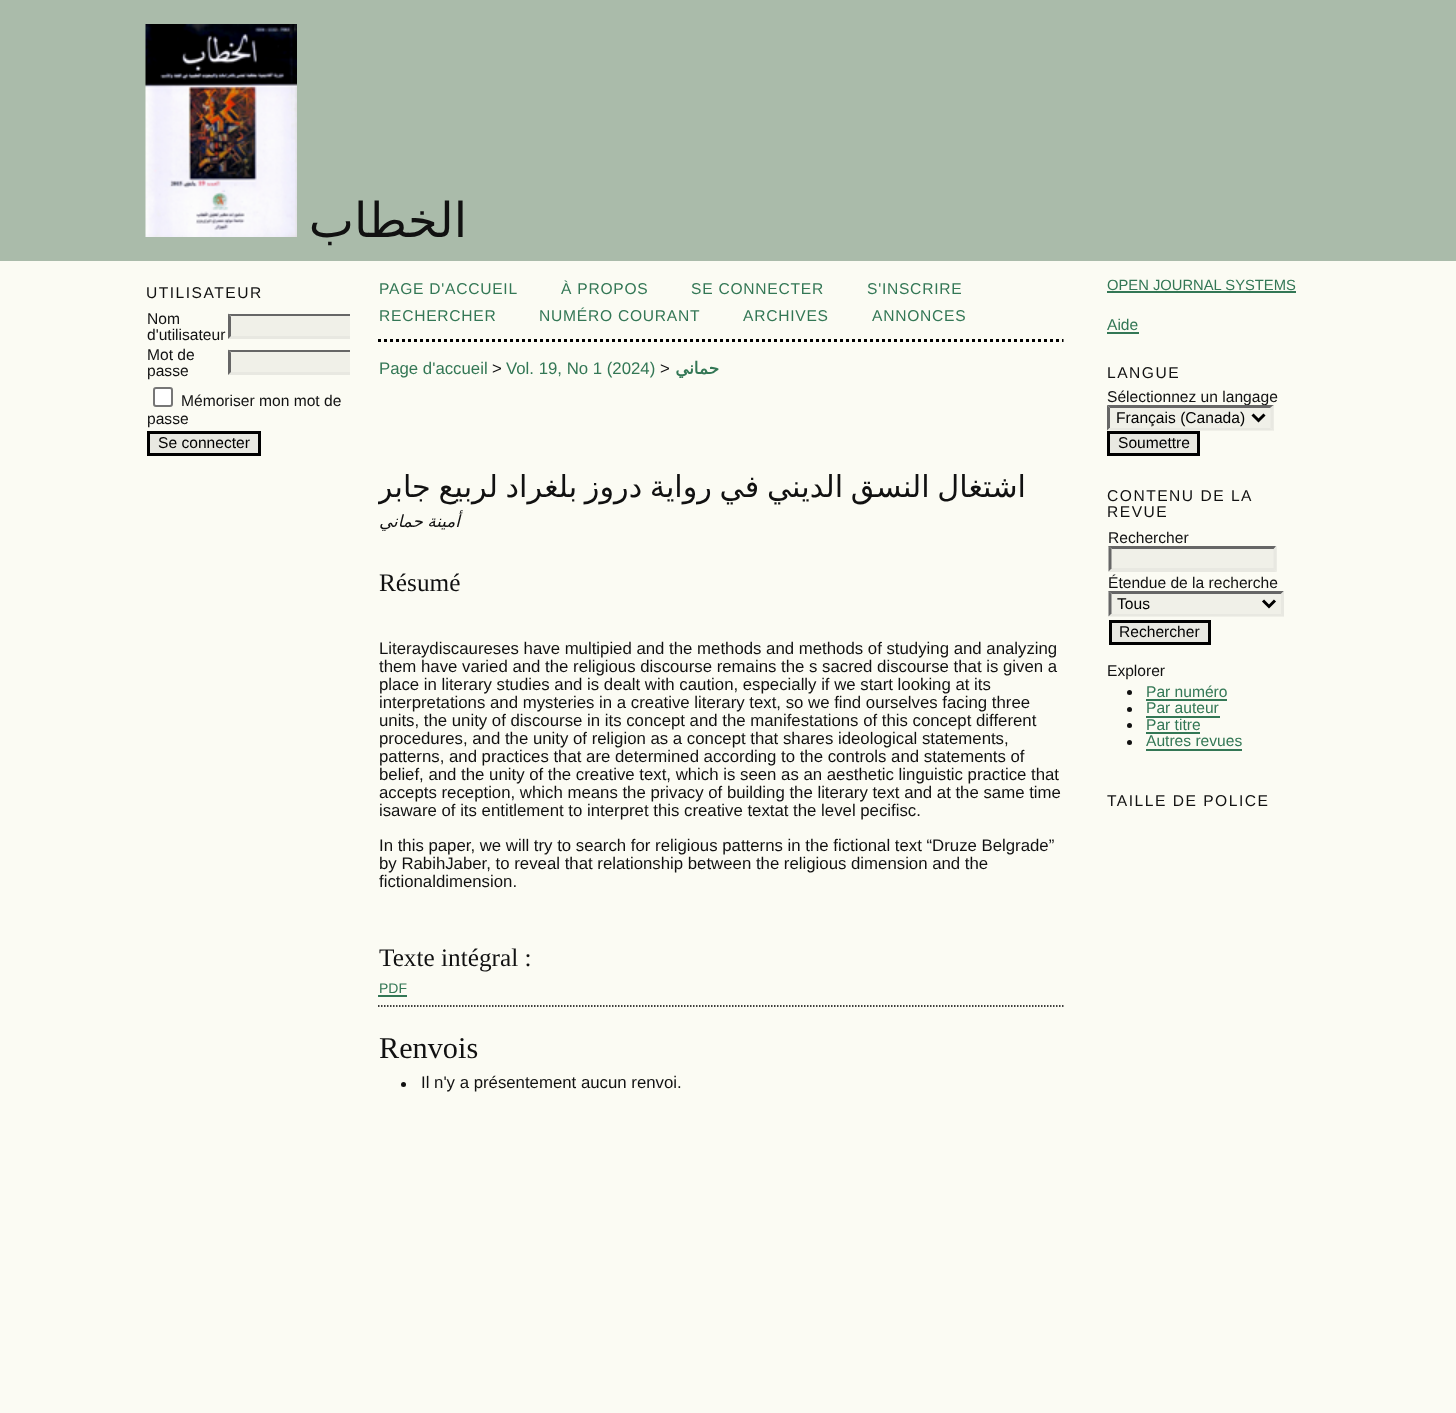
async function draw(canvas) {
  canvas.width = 1456
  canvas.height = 1413
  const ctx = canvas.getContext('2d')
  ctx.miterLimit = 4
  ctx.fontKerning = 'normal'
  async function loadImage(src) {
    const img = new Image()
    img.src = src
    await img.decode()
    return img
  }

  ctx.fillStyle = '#fbfbf3'
  ctx.fillRect(0, 0, 1456, 1413)
  ctx.fillStyle = '#aba'
  ctx.fillRect(0, 0, 1456, 261)
  ctx.drawImage(await loadImage('image0.png'), 145, 24, 152, 213)
  ctx.direction = 'rtl'
  ctx.font = '48px DejaVu Sans'
  ctx.fillStyle = '#111'
  ctx.fillText('الخطاب', 467, 237)
  ctx.letterSpacing = '1.5px'
  ctx.direction = 'ltr'
  ctx.font = '15.6px Liberation Sans'
  ctx.fillText('UTILISATEUR', 146, 298)
  ctx.letterSpacing = '0px'
  ctx.fillText('Nom', 147, 324)
  ctx.fillText('d\'utilisateur', 147, 340)
  ctx.fillStyle = '#f0f0e8'
  ctx.fillRect(228, 314, 122, 25)
  ctx.save()
  ctx.beginPath()
  ctx.rect(146, 261, 204, 236)
  ctx.clip()
  ctx.fillStyle = '#666'
  ctx.beginPath()
  ctx.moveTo(228, 314)
  ctx.lineTo(369, 314)
  ctx.lineTo(366, 316)
  ctx.lineTo(231, 316)
  ctx.closePath()
  ctx.fill()
  ctx.fillStyle = '#e8e8e1'
  ctx.beginPath()
  ctx.moveTo(369, 339)
  ctx.lineTo(228, 339)
  ctx.lineTo(231, 336)
  ctx.lineTo(366, 336)
  ctx.closePath()
  ctx.fill()
  ctx.restore()
  ctx.fillStyle = '#666'
  ctx.beginPath()
  ctx.moveTo(228, 339)
  ctx.lineTo(228, 313.5)
  ctx.lineTo(231, 316.5)
  ctx.lineTo(231, 336)
  ctx.closePath()
  ctx.fill()
  ctx.fillStyle = '#111'
  ctx.fillText('Mot de', 147, 360)
  ctx.fillText('passe', 147, 376)
  ctx.fillStyle = '#f0f0e8'
  ctx.fillRect(228, 350, 122, 25)
  ctx.save()
  ctx.beginPath()
  ctx.rect(146, 261, 204, 236)
  ctx.clip()
  ctx.fillStyle = '#666'
  ctx.beginPath()
  ctx.moveTo(228, 350)
  ctx.lineTo(369, 350)
  ctx.lineTo(366, 352)
  ctx.lineTo(231, 352)
  ctx.closePath()
  ctx.fill()
  ctx.fillStyle = '#e8e8e1'
  ctx.beginPath()
  ctx.moveTo(369, 375)
  ctx.lineTo(228, 375)
  ctx.lineTo(231, 372)
  ctx.lineTo(366, 372)
  ctx.closePath()
  ctx.fill()
  ctx.restore()
  ctx.fillStyle = '#666'
  ctx.beginPath()
  ctx.moveTo(228, 375)
  ctx.lineTo(228, 349.5)
  ctx.lineTo(231, 352.5)
  ctx.lineTo(231, 372)
  ctx.closePath()
  ctx.fill()
  ctx.fillStyle = '#fff'
  ctx.beginPath()
  ctx.roundRect(154, 388, 18, 18, 2)
  ctx.fill()
  ctx.strokeStyle = '#767676'
  ctx.lineWidth = 2
  ctx.stroke()
  ctx.fillStyle = '#111'
  ctx.fillText('Mémoriser mon mot de', 181, 406)
  ctx.fillText('passe', 147, 424)
  ctx.fillStyle = '#e8e8e1'
  ctx.beginPath()
  ctx.rect(148.5, 432.5, 111, 22)
  ctx.fill()
  ctx.strokeStyle = '#000'
  ctx.lineWidth = 3
  ctx.stroke()
  ctx.fillStyle = '#000'
  ctx.fillText('Se connecter', 158, 448)
  ctx.font = '14.75px Liberation Sans'
  ctx.fillStyle = '#375'
  ctx.fillText('OPEN JOURNAL SYSTEMS', 1107, 290)
  ctx.fillRect(1107, 291, 189, 2)
  ctx.font = '15.6px Liberation Sans'
  ctx.fillText('Aide', 1107, 330)
  ctx.fillRect(1107, 332, 32, 2)
  ctx.letterSpacing = '1.5px'
  ctx.fillStyle = '#111'
  ctx.fillText('LANGUE', 1107, 378)
  ctx.letterSpacing = '0px'
  ctx.fillText('Sélectionnez un langage', 1107, 402)
  ctx.fillStyle = '#f0f0e8'
  ctx.fillRect(1107, 405, 167, 26)
  ctx.fillStyle = '#666'
  ctx.beginPath()
  ctx.moveTo(1107, 405)
  ctx.lineTo(1274, 405)
  ctx.lineTo(1270, 408)
  ctx.lineTo(1110, 408)
  ctx.closePath()
  ctx.fill()
  ctx.fillStyle = '#e8e8e1'
  ctx.beginPath()
  ctx.moveTo(1273.5, 405)
  ctx.lineTo(1273.5, 430.5)
  ctx.lineTo(1270.5, 427.5)
  ctx.lineTo(1270.5, 408)
  ctx.closePath()
  ctx.fill()
  ctx.beginPath()
  ctx.moveTo(1274, 430)
  ctx.lineTo(1107, 430)
  ctx.lineTo(1110, 428)
  ctx.lineTo(1270, 428)
  ctx.closePath()
  ctx.fill()
  ctx.fillStyle = '#666'
  ctx.beginPath()
  ctx.moveTo(1107, 430.5)
  ctx.lineTo(1107, 405)
  ctx.lineTo(1110, 408)
  ctx.lineTo(1110, 427.5)
  ctx.closePath()
  ctx.fill()
  ctx.beginPath()
  ctx.moveTo(1252.5, 414.5)
  ctx.lineTo(1258.5, 420.5)
  ctx.lineTo(1264.5, 414.5)
  ctx.stroke()
  ctx.fillStyle = '#000'
  ctx.fillText('Français (Canada)', 1116, 423)
  ctx.fillStyle = '#e8e8e1'
  ctx.beginPath()
  ctx.rect(1108.5, 432.5, 90, 22)
  ctx.fill()
  ctx.stroke()
  ctx.fillStyle = '#000'
  ctx.fillText('Soumettre', 1118, 448)
  ctx.letterSpacing = '1.5px'
  ctx.fillStyle = '#111'
  ctx.fillText('CONTENU DE LA', 1107, 501)
  ctx.fillText('REVUE', 1107, 517)
  ctx.letterSpacing = '0px'
  ctx.fillText('Rechercher', 1108, 543)
  ctx.fillStyle = '#f0f0e8'
  ctx.fillRect(1109, 546, 168, 26)
  ctx.fillStyle = '#666'
  ctx.beginPath()
  ctx.moveTo(1108, 546)
  ctx.lineTo(1276, 546)
  ctx.lineTo(1274, 549)
  ctx.lineTo(1112, 549)
  ctx.closePath()
  ctx.fill()
  ctx.fillStyle = '#e8e8e1'
  ctx.beginPath()
  ctx.moveTo(1276.5, 546)
  ctx.lineTo(1276.5, 571.5)
  ctx.lineTo(1273.5, 568.5)
  ctx.lineTo(1273.5, 549)
  ctx.closePath()
  ctx.fill()
  ctx.beginPath()
  ctx.moveTo(1276, 572)
  ctx.lineTo(1108, 572)
  ctx.lineTo(1112, 568)
  ctx.lineTo(1274, 568)
  ctx.closePath()
  ctx.fill()
  ctx.fillStyle = '#666'
  ctx.beginPath()
  ctx.moveTo(1108.5, 571.5)
  ctx.lineTo(1108.5, 546)
  ctx.lineTo(1111.5, 549)
  ctx.lineTo(1111.5, 568.5)
  ctx.closePath()
  ctx.fill()
  ctx.fillStyle = '#111'
  ctx.fillText('Étendue de la recherche', 1108, 588)
  ctx.fillStyle = '#f0f0e8'
  ctx.fillRect(1109, 591, 175, 26)
  ctx.fillStyle = '#666'
  ctx.beginPath()
  ctx.moveTo(1108, 591)
  ctx.lineTo(1284, 591)
  ctx.lineTo(1281, 594)
  ctx.lineTo(1112, 594)
  ctx.closePath()
  ctx.fill()
  ctx.fillStyle = '#e8e8e1'
  ctx.beginPath()
  ctx.moveTo(1284, 591)
  ctx.lineTo(1284, 616.5)
  ctx.lineTo(1281, 613.5)
  ctx.lineTo(1281, 594)
  ctx.closePath()
  ctx.fill()
  ctx.beginPath()
  ctx.moveTo(1284, 616)
  ctx.lineTo(1108, 616)
  ctx.lineTo(1112, 614)
  ctx.lineTo(1281, 614)
  ctx.closePath()
  ctx.fill()
  ctx.fillStyle = '#666'
  ctx.beginPath()
  ctx.moveTo(1108.5, 616.5)
  ctx.lineTo(1108.5, 591)
  ctx.lineTo(1111.5, 594)
  ctx.lineTo(1111.5, 613.5)
  ctx.closePath()
  ctx.fill()
  ctx.beginPath()
  ctx.moveTo(1263, 600.5)
  ctx.lineTo(1269, 606.5)
  ctx.lineTo(1275, 600.5)
  ctx.stroke()
  ctx.fillStyle = '#000'
  ctx.fillText('Tous', 1117, 609)
  ctx.fillStyle = '#e8e8e1'
  ctx.beginPath()
  ctx.rect(1110.5, 621.5, 99, 22)
  ctx.fill()
  ctx.stroke()
  ctx.fillStyle = '#000'
  ctx.fillText('Rechercher', 1119, 637)
  ctx.fillStyle = '#111'
  ctx.fillText('Explorer', 1107, 676)
  ctx.beginPath()
  ctx.arc(1129.5, 692.5, 2.5, 0, 2 * Math.PI)
  ctx.fill()
  ctx.fillStyle = '#375'
  ctx.fillText('Par numéro', 1146, 697)
  ctx.fillRect(1146, 699, 81, 2)
  ctx.fillStyle = '#111'
  ctx.beginPath()
  ctx.arc(1129.5, 709.5, 2.5, 0, 2 * Math.PI)
  ctx.fill()
  ctx.fillStyle = '#375'
  ctx.fillText('Par auteur', 1146, 713)
  ctx.fillRect(1146, 716, 74, 2)
  ctx.fillStyle = '#111'
  ctx.beginPath()
  ctx.arc(1129.5, 725.5, 2.5, 0, 2 * Math.PI)
  ctx.fill()
  ctx.fillStyle = '#375'
  ctx.fillText('Par titre', 1146, 730)
  ctx.fillRect(1146, 732, 54, 2)
  ctx.fillStyle = '#111'
  ctx.beginPath()
  ctx.arc(1129.5, 742.5, 2.5, 0, 2 * Math.PI)
  ctx.fill()
  ctx.fillStyle = '#375'
  ctx.fillText('Autres revues', 1146, 746)
  ctx.fillRect(1146, 749, 96, 2)
  ctx.letterSpacing = '1.5px'
  ctx.fillStyle = '#111'
  ctx.fillText('TAILLE DE POLICE', 1107, 806)
  ctx.beginPath()
  ctx.moveTo(378, 340.5)
  ctx.lineTo(1063.5, 340.5)
  ctx.setLineDash([3, 3])
  ctx.stroke()
  ctx.letterSpacing = '0.75px'
  ctx.fillStyle = '#375'
  ctx.fillText('PAGE D\'ACCUEIL', 379, 294)
  ctx.fillText('À PROPOS', 561, 294)
  ctx.fillText('SE CONNECTER', 691, 294)
  ctx.fillText('S\'INSCRIRE', 867, 294)
  ctx.fillText('RECHERCHER', 379, 321)
  ctx.fillText('NUMÉRO COURANT', 539, 321)
  ctx.fillText('ARCHIVES', 743, 321)
  ctx.fillText('ANNONCES', 872, 321)
  ctx.letterSpacing = '0px'
  ctx.font = '16.8px Liberation Sans'
  ctx.fillText('Page d\'accueil', 379, 374)
  ctx.fillStyle = '#111'
  ctx.fillText('>', 492, 374)
  ctx.fillStyle = '#375'
  ctx.fillText('Vol. 19, No 1 (2024)', 506, 374)
  ctx.fillStyle = '#111'
  ctx.fillText('>', 660, 374)
  ctx.direction = 'rtl'
  ctx.font = 'bold 16.8px DejaVu Sans'
  ctx.fillStyle = '#375'
  ctx.fillText('حماني', 719, 374)
  ctx.save()
  ctx.beginPath()
  ctx.rect(378, 261, 686, 891)
  ctx.clip()
  ctx.wordSpacing = '-2px'
  ctx.font = '30.25px DejaVu Sans'
  ctx.fillStyle = '#111'
  ctx.fillText('اشتغال النسق الديني في رواية دروز بلغراد لربيع جابر', 1026, 497)
  ctx.restore()
  ctx.wordSpacing = '-1px'
  ctx.font = 'italic 16.8px DejaVu Sans'
  ctx.fillStyle = '#111'
  ctx.fillText('أمينة حماني', 460, 527)
  ctx.wordSpacing = '0px'
  ctx.direction = 'ltr'
  ctx.font = '25.25px Liberation Serif'
  ctx.fillText('Résumé', 379, 591)
  ctx.font = '16.8px Liberation Sans'
  ctx.fillText('Literaydiscaureses have multipied and the methods and methods of studying and analyzing', 379, 654)
  ctx.fillText('them have varied and the religious discourse remains the s sacred discourse that is given a', 379, 672)
  ctx.fillText('place in literary studies and is dealt with caution, especially if we start looking at its', 379, 690)
  ctx.fillText('interpretations and mysteries in a creative literary text, so we find ourselves facing three', 379, 708)
  ctx.fillText('units, the unity of discourse in its concept and the manifestations of this concept different', 379, 726)
  ctx.fillText('procedures, and the unity of religion as a concept that shares ideological statements,', 379, 744)
  ctx.fillText('patterns, and practices that are determined according to the controls and statements of', 379, 762)
  ctx.fillText('belief, and the unity of the creative text, which is seen as an aesthetic linguistic practice that', 379, 780)
  ctx.fillText('accepts reception, which means the privacy of building the literary text and at the same time', 379, 798)
  ctx.fillText('isaware of its entitlement to interpret this creative textat the level pecifisc.', 379, 816)
  ctx.fillText('In this paper, we will try to search for religious patterns in the fictional text “Druze Belgrade”', 379, 851)
  ctx.fillText('by RabihJaber, to reveal that relationship between the religious dimension and the', 379, 869)
  ctx.fillText('fictionaldimension.', 379, 887)
  ctx.font = '25.25px Liberation Serif'
  ctx.fillText('Texte intégral :', 379, 966)
  ctx.font = '14px Liberation Sans'
  ctx.fillStyle = '#375'
  ctx.fillText('PDF', 379, 993)
  ctx.fillRect(378, 995, 29, 2)
  ctx.beginPath()
  ctx.moveTo(378, 1006)
  ctx.lineTo(1063.5, 1006)
  ctx.lineWidth = 1.5
  ctx.setLineDash([1.5, 1.5])
  ctx.stroke()
  ctx.font = '30.25px Liberation Serif'
  ctx.fillStyle = '#111'
  ctx.fillText('Renvois', 379, 1058)
  ctx.beginPath()
  ctx.arc(403.5, 1084.5, 2.5, 0, 2 * Math.PI)
  ctx.fill()
  ctx.font = '16.8px Liberation Sans'
  ctx.fillText('Il n\'y a présentement aucun renvoi.', 421, 1088)
}

draw(document.querySelector('canvas'))
